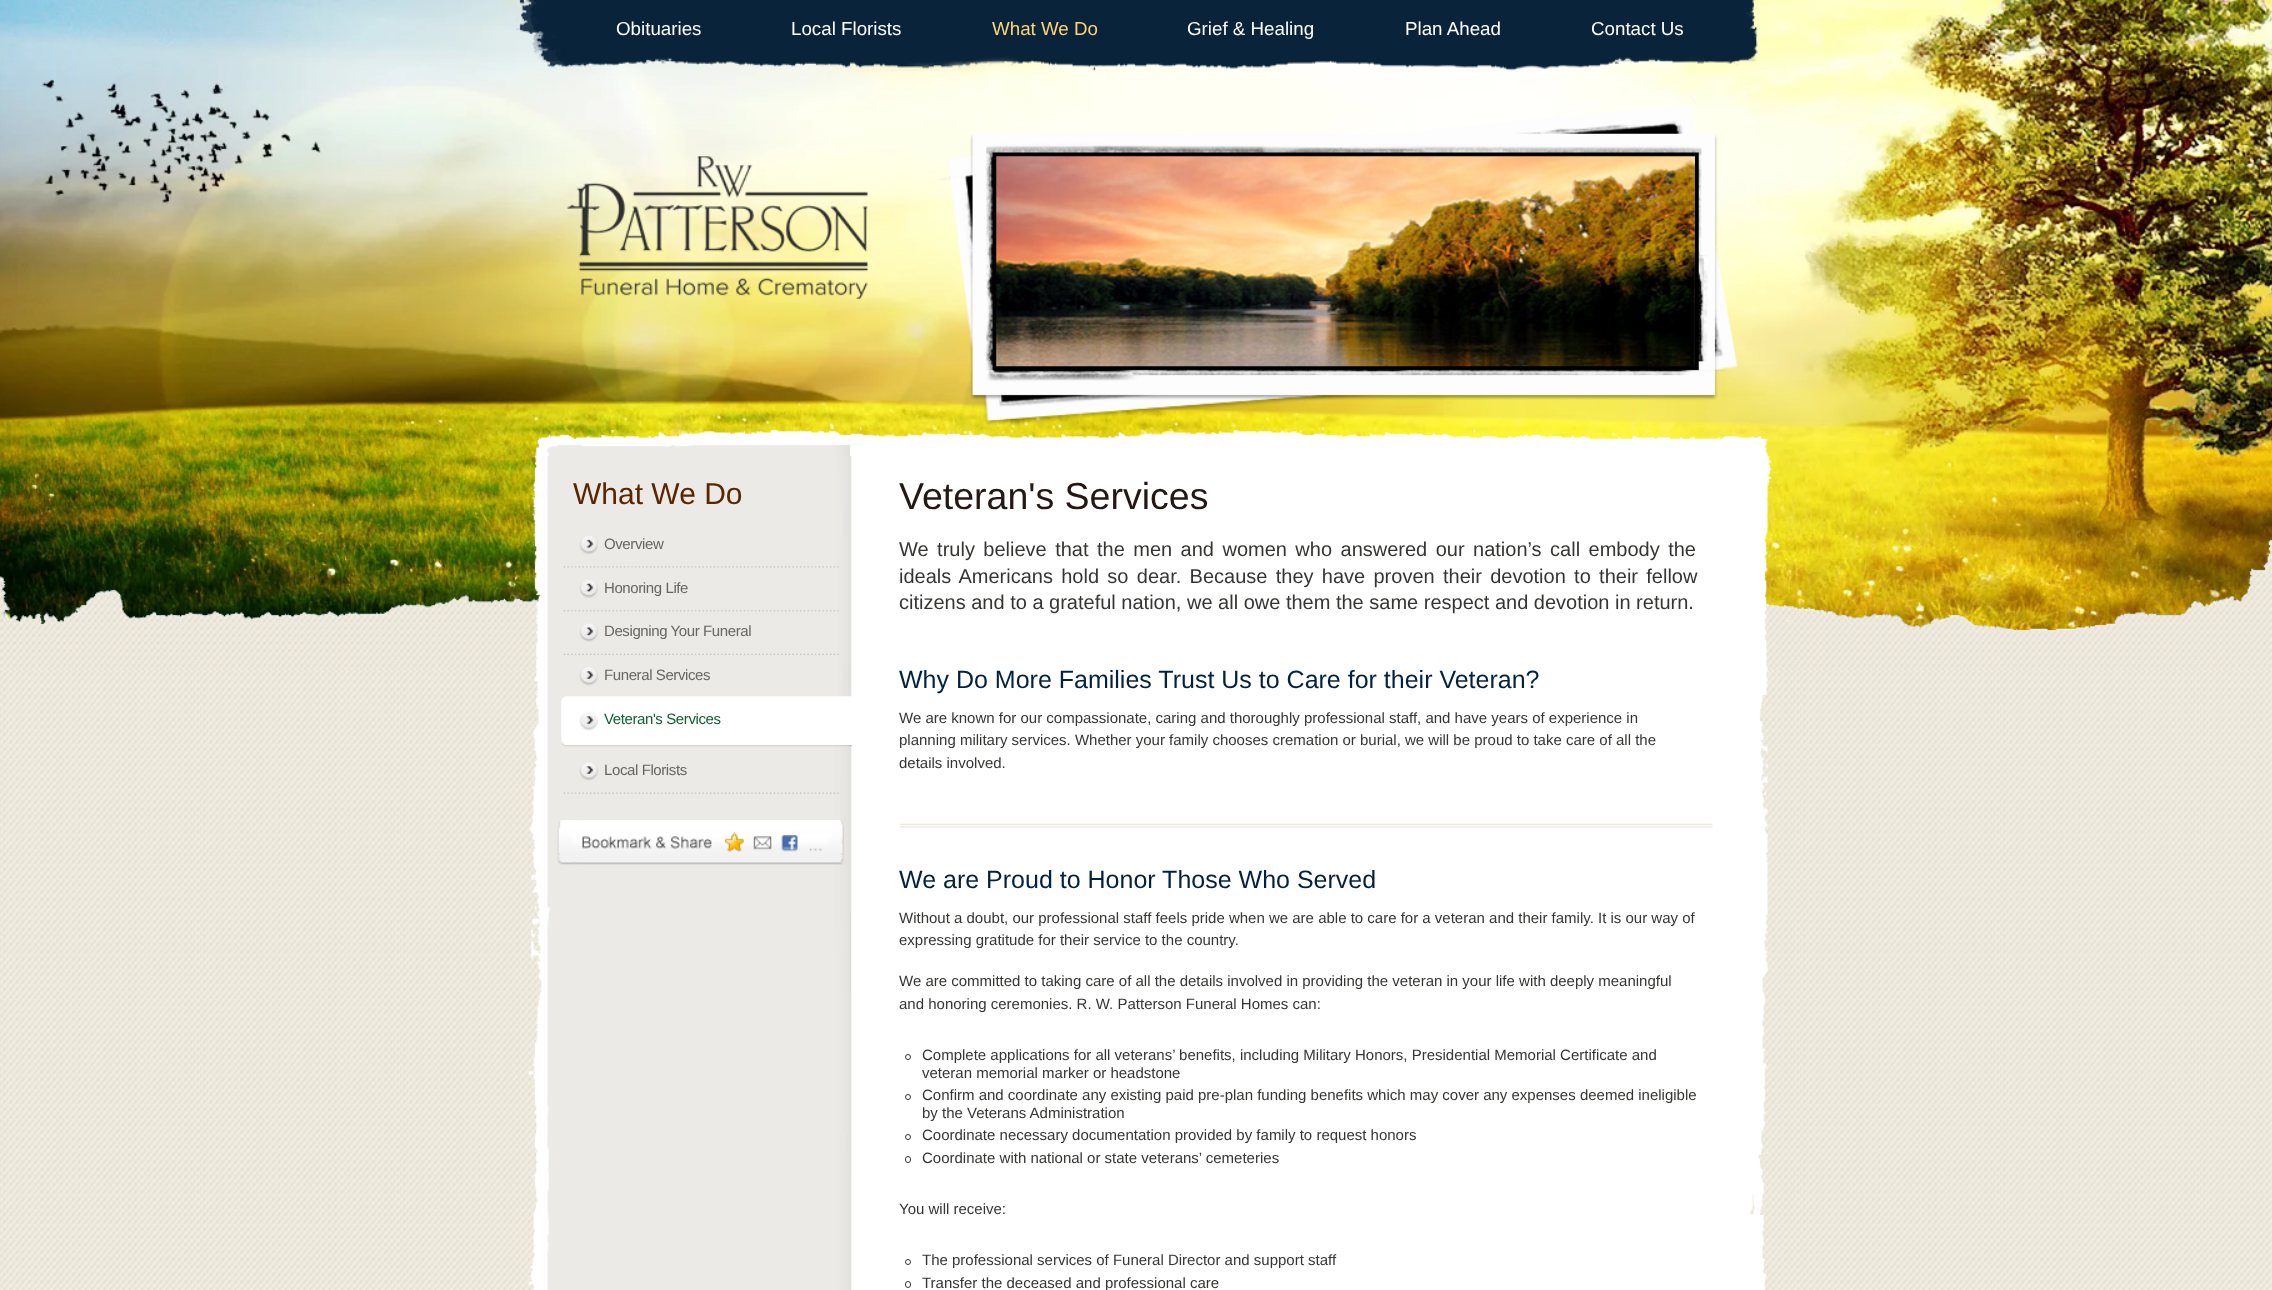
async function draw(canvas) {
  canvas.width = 2272
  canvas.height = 1290
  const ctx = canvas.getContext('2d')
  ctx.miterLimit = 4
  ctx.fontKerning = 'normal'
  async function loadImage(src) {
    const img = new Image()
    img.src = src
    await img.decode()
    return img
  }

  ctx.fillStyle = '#f5f2e9'
  ctx.fillRect(0, 0, 2272, 1290)
  ctx.drawImage(await loadImage('image0.png'), 0, 670, 2272, 620)
  ctx.drawImage(await loadImage('image1.png'), 0, 0, 2272, 667)
  ctx.drawImage(await loadImage('image2.png'), 0, 539, 2272, 131)
  ctx.drawImage(await loadImage('image3.png'), 516, 0, 1242, 71)
  ctx.font = '18.75px Liberation Sans'
  ctx.fillStyle = '#fff'
  ctx.fillText('Obituaries', 616, 35)
  ctx.fillText('Local Florists', 791, 35)
  ctx.fillStyle = '#fdd576'
  ctx.fillText('What We Do', 992, 35)
  ctx.fillStyle = '#fff'
  ctx.fillText('Grief & Healing', 1187, 35)
  ctx.fillText('Plan Ahead', 1405, 35)
  ctx.fillText('Contact Us', 1591, 35)
  ctx.drawImage(await loadImage('image4.png'), 567, 156, 301, 143)
  ctx.drawImage(await loadImage('image5.png'), 939, 96, 799, 329)
  ctx.drawImage(await loadImage('image6.png'), 996, 156, 699, 211)
  ctx.drawImage(await loadImage('image7.png'), 535, 426, 1236, 40)
  ctx.drawImage(await loadImage('image8.png'), 515, 456, 1265, 834)
  ctx.font = '30px Liberation Sans'
  ctx.fillStyle = '#5a2600'
  ctx.fillText('What We Do', 573, 504)
  ctx.drawImage(await loadImage('image9.png'), 563, 566, 276, 2)
  ctx.drawImage(await loadImage('image10.png'), 579, 536, 19, 18)
  ctx.letterSpacing = '-0.4px'
  ctx.font = '15px Liberation Sans'
  ctx.fillStyle = '#696560'
  ctx.fillText('Overview', 604, 549)
  ctx.drawImage(await loadImage('image11.png'), 563, 610, 276, 2)
  ctx.drawImage(await loadImage('image12.png'), 579, 580, 19, 18)
  ctx.fillText('Honoring Life', 604, 593)
  ctx.drawImage(await loadImage('image13.png'), 563, 653, 276, 2)
  ctx.drawImage(await loadImage('image14.png'), 579, 623, 19, 19)
  ctx.fillText('Designing Your Funeral', 604, 636)
  ctx.drawImage(await loadImage('image15.png'), 563, 697, 3, 2)
  ctx.drawImage(await loadImage('image16.png'), 579, 667, 19, 19)
  ctx.fillText('Funeral Services', 604, 680)
  ctx.drawImage(await loadImage('image17.png'), 561, 696, 292, 51)
  ctx.drawImage(await loadImage('image18.png'), 579, 711, 19, 20)
  ctx.fillStyle = '#0e5e33'
  ctx.fillText('Veteran\'s Services', 604, 724)
  ctx.drawImage(await loadImage('image19.png'), 563, 792, 276, 2)
  ctx.drawImage(await loadImage('image16.png'), 579, 762, 19, 19)
  ctx.fillStyle = '#696560'
  ctx.fillText('Local Florists', 604, 775)
  ctx.drawImage(await loadImage('image20.png'), 557, 820, 287, 45)
  ctx.letterSpacing = '0px'
  ctx.font = '37.5px Liberation Sans'
  ctx.fillStyle = '#241815'
  ctx.fillText('Veteran\'s Services', 899, 509)
  ctx.wordSpacing = '2.9px'
  ctx.font = '20px Liberation Sans'
  ctx.fillStyle = '#353533'
  ctx.fillText('We truly believe that the men and women who answered our nation’s call embody the', 899, 556)
  ctx.wordSpacing = '2.75px'
  ctx.fillText('ideals Americans hold so dear. Because they have proven their devotion to their fellow', 899, 583)
  ctx.wordSpacing = '0px'
  ctx.fillText('citizens and to a grateful nation, we all owe them the same respect and devotion in return.', 899, 609)
  ctx.font = '25px Liberation Sans'
  ctx.fillStyle = '#022140'
  ctx.fillText('Why Do More Families Trust Us to Care for their Veteran?', 899, 688)
  ctx.font = '15px Liberation Sans'
  ctx.fillStyle = '#353533'
  ctx.fillText('We are known for our compassionate, caring and thoroughly professional staff, and have years of experience in', 899, 723)
  ctx.fillText('planning military services. Whether your family chooses cremation or burial, we will be proud to take care of all the', 899, 745)
  ctx.fillText('details involved.', 899, 768)
  ctx.drawImage(await loadImage('image21.png'), 900, 823, 813, 5)
  ctx.font = '25px Liberation Sans'
  ctx.fillStyle = '#022140'
  ctx.fillText('We are Proud to Honor Those Who Served', 899, 888)
  ctx.font = '15px Liberation Sans'
  ctx.fillStyle = '#353533'
  ctx.fillText('Without a doubt, our professional staff feels pride when we are able to care for a veteran and their family. It is our way of', 899, 923)
  ctx.fillText('expressing gratitude for their service to the country.', 899, 945)
  ctx.fillText('We are committed to taking care of all the details involved in providing the veteran in your life with deeply meaningful', 899, 986)
  ctx.fillText('and honoring ceremonies. R. W. Patterson Funeral Homes can:', 899, 1009)
  ctx.beginPath()
  ctx.arc(908, 1057, 2.5, 0, 2 * Math.PI)
  ctx.strokeStyle = '#353533'
  ctx.stroke()
  ctx.fillText('Complete applications for all veterans’ benefits, including Military Honors, Presidential Memorial Certificate and', 922, 1060)
  ctx.fillText('veteran memorial marker or headstone', 922, 1078)
  ctx.beginPath()
  ctx.arc(908, 1097, 2.5, 0, 2 * Math.PI)
  ctx.stroke()
  ctx.fillText('Confirm and coordinate any existing paid pre-plan funding benefits which may cover any expenses deemed ineligible', 922, 1100)
  ctx.fillText('by the Veterans Administration', 922, 1118)
  ctx.beginPath()
  ctx.arc(908, 1137, 2.5, 0, 2 * Math.PI)
  ctx.stroke()
  ctx.fillText('Coordinate necessary documentation provided by family to request honors', 922, 1140)
  ctx.beginPath()
  ctx.roundRect(905.5, 1156.5, 5, 6, 2.5)
  ctx.stroke()
  ctx.fillText('Coordinate with national or state veterans’ cemeteries', 922, 1163)
  ctx.fillText('You will receive:', 899, 1214)
  ctx.beginPath()
  ctx.arc(908, 1262, 2.5, 0, 2 * Math.PI)
  ctx.stroke()
  ctx.fillText('The professional services of Funeral Director and support staff', 922, 1265)
  ctx.beginPath()
  ctx.roundRect(905.5, 1281.5, 5, 6, 2.5)
  ctx.stroke()
  ctx.fillText('Transfer the deceased and professional care', 922, 1288)
}

draw(document.querySelector('canvas'))
